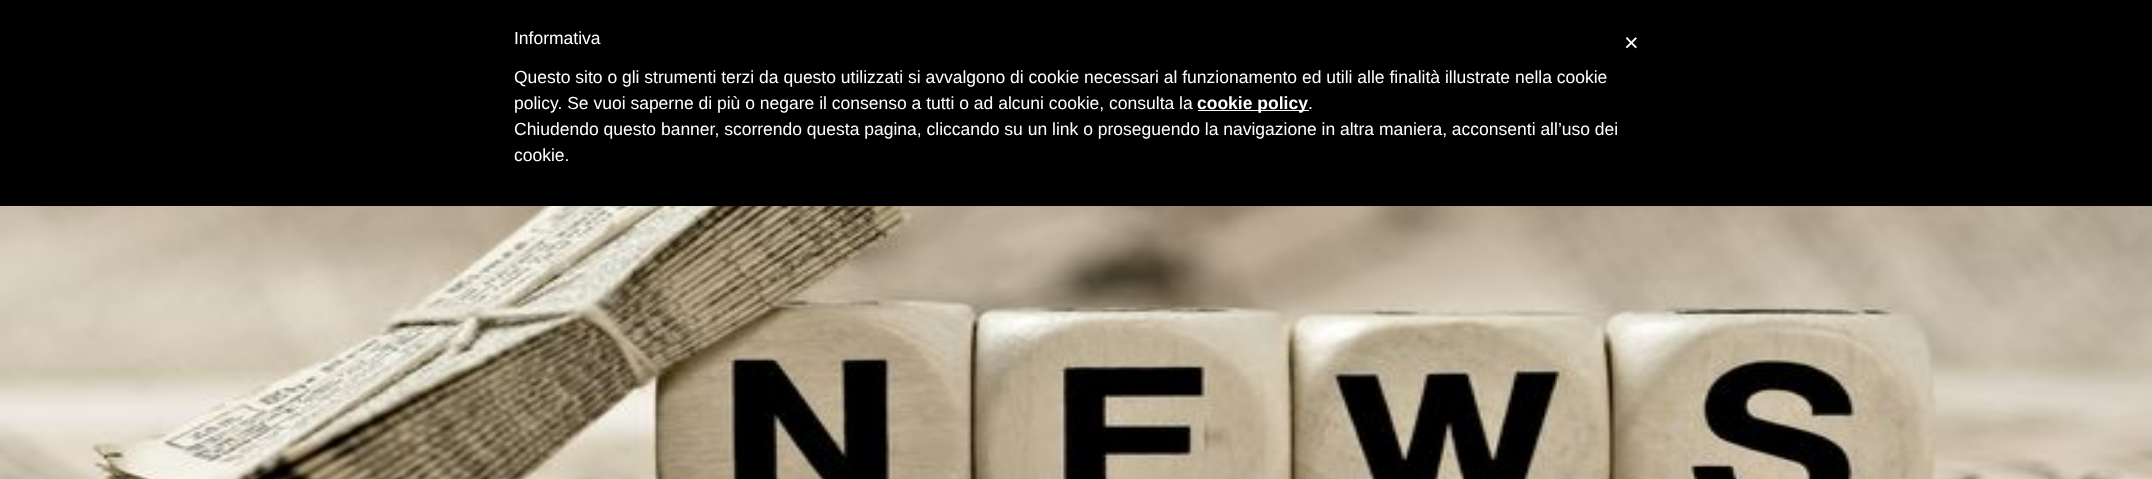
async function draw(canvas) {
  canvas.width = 2152
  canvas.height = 479
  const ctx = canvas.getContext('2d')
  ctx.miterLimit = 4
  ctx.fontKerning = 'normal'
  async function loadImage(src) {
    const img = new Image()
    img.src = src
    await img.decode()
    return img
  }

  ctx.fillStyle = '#fff'
  ctx.fillRect(0, 0, 2152, 479)
  ctx.fillStyle = '#000'
  ctx.fillRect(0, 0, 2152, 206)
  ctx.font = '17.5px Liberation Sans'
  ctx.fillStyle = '#fff'
  ctx.fillText('Informativa', 514, 44)
  ctx.fillText('Questo sito o gli strumenti terzi da questo utilizzati si avvalgono di cookie necessari al funzionamento ed utili alle finalità illustrate nella cookie', 514, 83)
  ctx.fillText('policy. Se vuoi saperne di più o negare il consenso a tutti o ad alcuni cookie, consulta la', 514, 109)
  ctx.fillRect(1198, 110, 111, 1)
  ctx.font = 'bold 17.5px Liberation Sans'
  ctx.fillText('cookie policy', 1197, 109)
  ctx.font = '17.5px Liberation Sans'
  ctx.fillText('.', 1308, 109)
  ctx.fillText('Chiudendo questo banner, scorrendo questa pagina, cliccando su un link o proseguendo la navigazione in altra maniera, acconsenti all’uso dei', 514, 135)
  ctx.fillText('cookie.', 514, 161)
  ctx.font = '25px Liberation Sans'
  ctx.fillText('×', 1624, 51)
  ctx.drawImage(await loadImage('image0.png'), 0, 206, 2152, 273)
}

draw(document.querySelector('canvas'))
